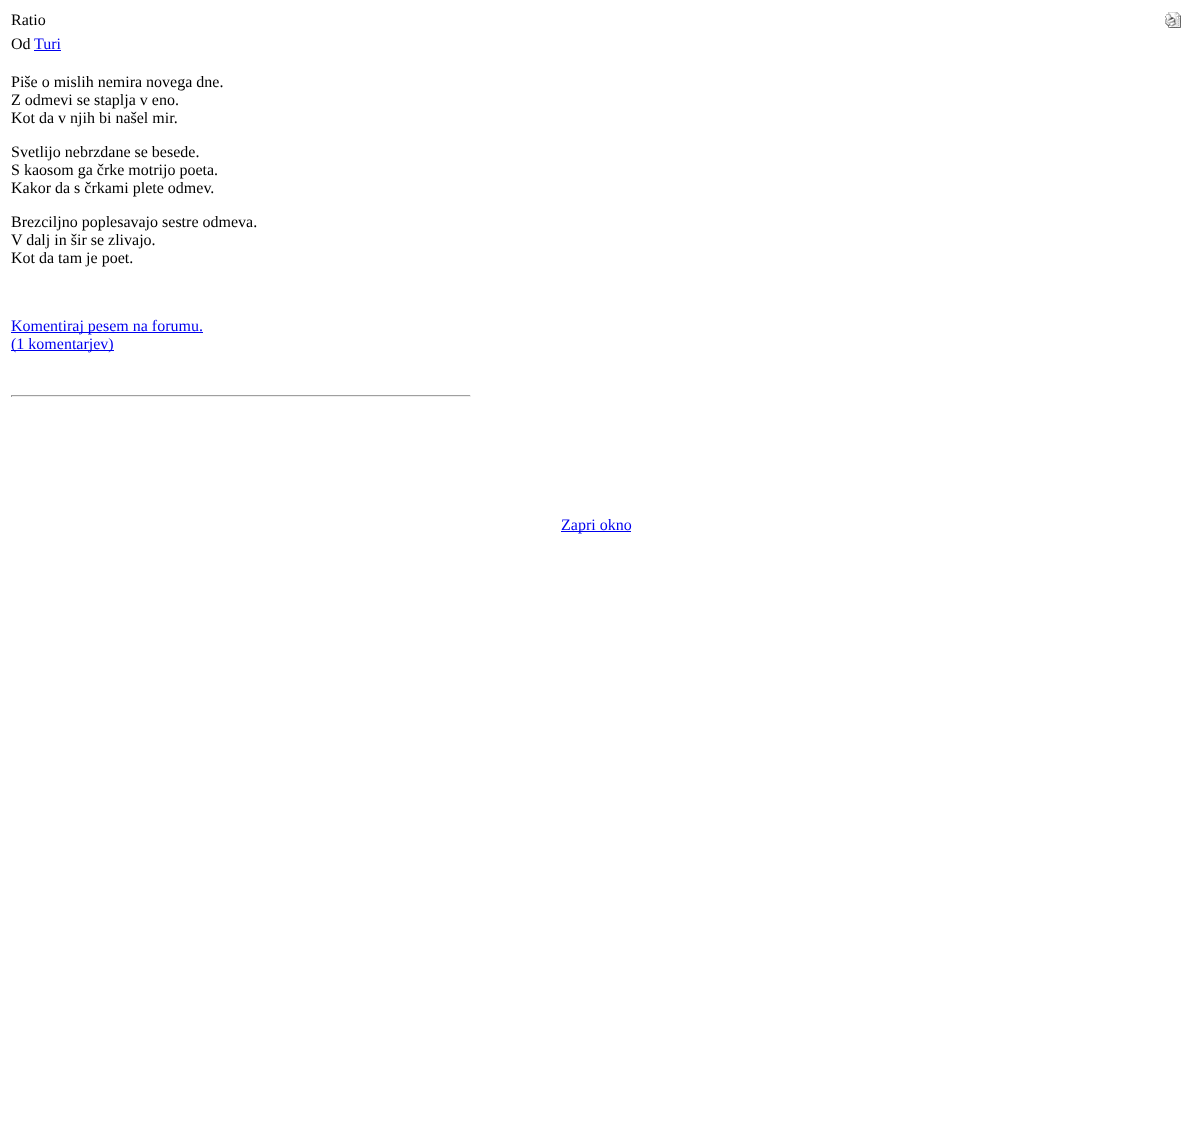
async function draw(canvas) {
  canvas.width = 1192
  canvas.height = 1124
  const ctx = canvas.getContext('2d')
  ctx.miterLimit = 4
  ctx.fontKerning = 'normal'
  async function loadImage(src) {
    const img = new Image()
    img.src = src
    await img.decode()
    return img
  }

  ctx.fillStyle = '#fff'
  ctx.fillRect(0, 0, 1192, 1124)
  ctx.font = '16px Liberation Serif'
  ctx.fillStyle = '#000'
  ctx.fillText('Ratio', 11, 25)
  ctx.drawImage(await loadImage('image0.png'), 1165, 12, 16, 16)
  ctx.fillText('Od', 11, 49)
  ctx.fillStyle = '#00e'
  ctx.fillText('Turi', 34, 49)
  ctx.fillRect(34, 50, 27, 1)
  ctx.fillStyle = '#000'
  ctx.fillText('Piše o mislih nemira novega dne.', 11, 87)
  ctx.fillText('Z odmevi se staplja v eno.', 11, 105)
  ctx.fillText('Kot da v njih bi našel mir.', 11, 123)
  ctx.fillText('Svetlijo nebrzdane se besede.', 11, 157)
  ctx.fillText('S kaosom ga črke motrijo poeta.', 11, 175)
  ctx.fillText('Kakor da s črkami plete odmev.', 11, 193)
  ctx.fillText('Brezciljno poplesavajo sestre odmeva.', 11, 227)
  ctx.fillText('V dalj in šir se zlivajo.', 11, 245)
  ctx.fillText('Kot da tam je poet.', 11, 263)
  ctx.fillStyle = '#00e'
  ctx.fillRect(11, 332, 192, 1)
  ctx.fillText('Komentiraj pesem na forumu.', 11, 331)
  ctx.fillRect(11, 350, 103, 1)
  ctx.fillText('(1 komentarjev)', 11, 349)
  ctx.fillStyle = '#9f9f9f'
  ctx.fillRect(11, 395, 460, 1)
  ctx.fillStyle = '#eee'
  ctx.fillRect(470, 395, 1, 2)
  ctx.fillRect(11, 396, 460, 1)
  ctx.fillStyle = '#9f9f9f'
  ctx.fillRect(11, 395, 1, 2)
  ctx.fillStyle = '#00e'
  ctx.fillRect(561, 531, 70, 1)
  ctx.fillText('Zapri okno', 561, 530)
}

draw(document.querySelector('canvas'))
